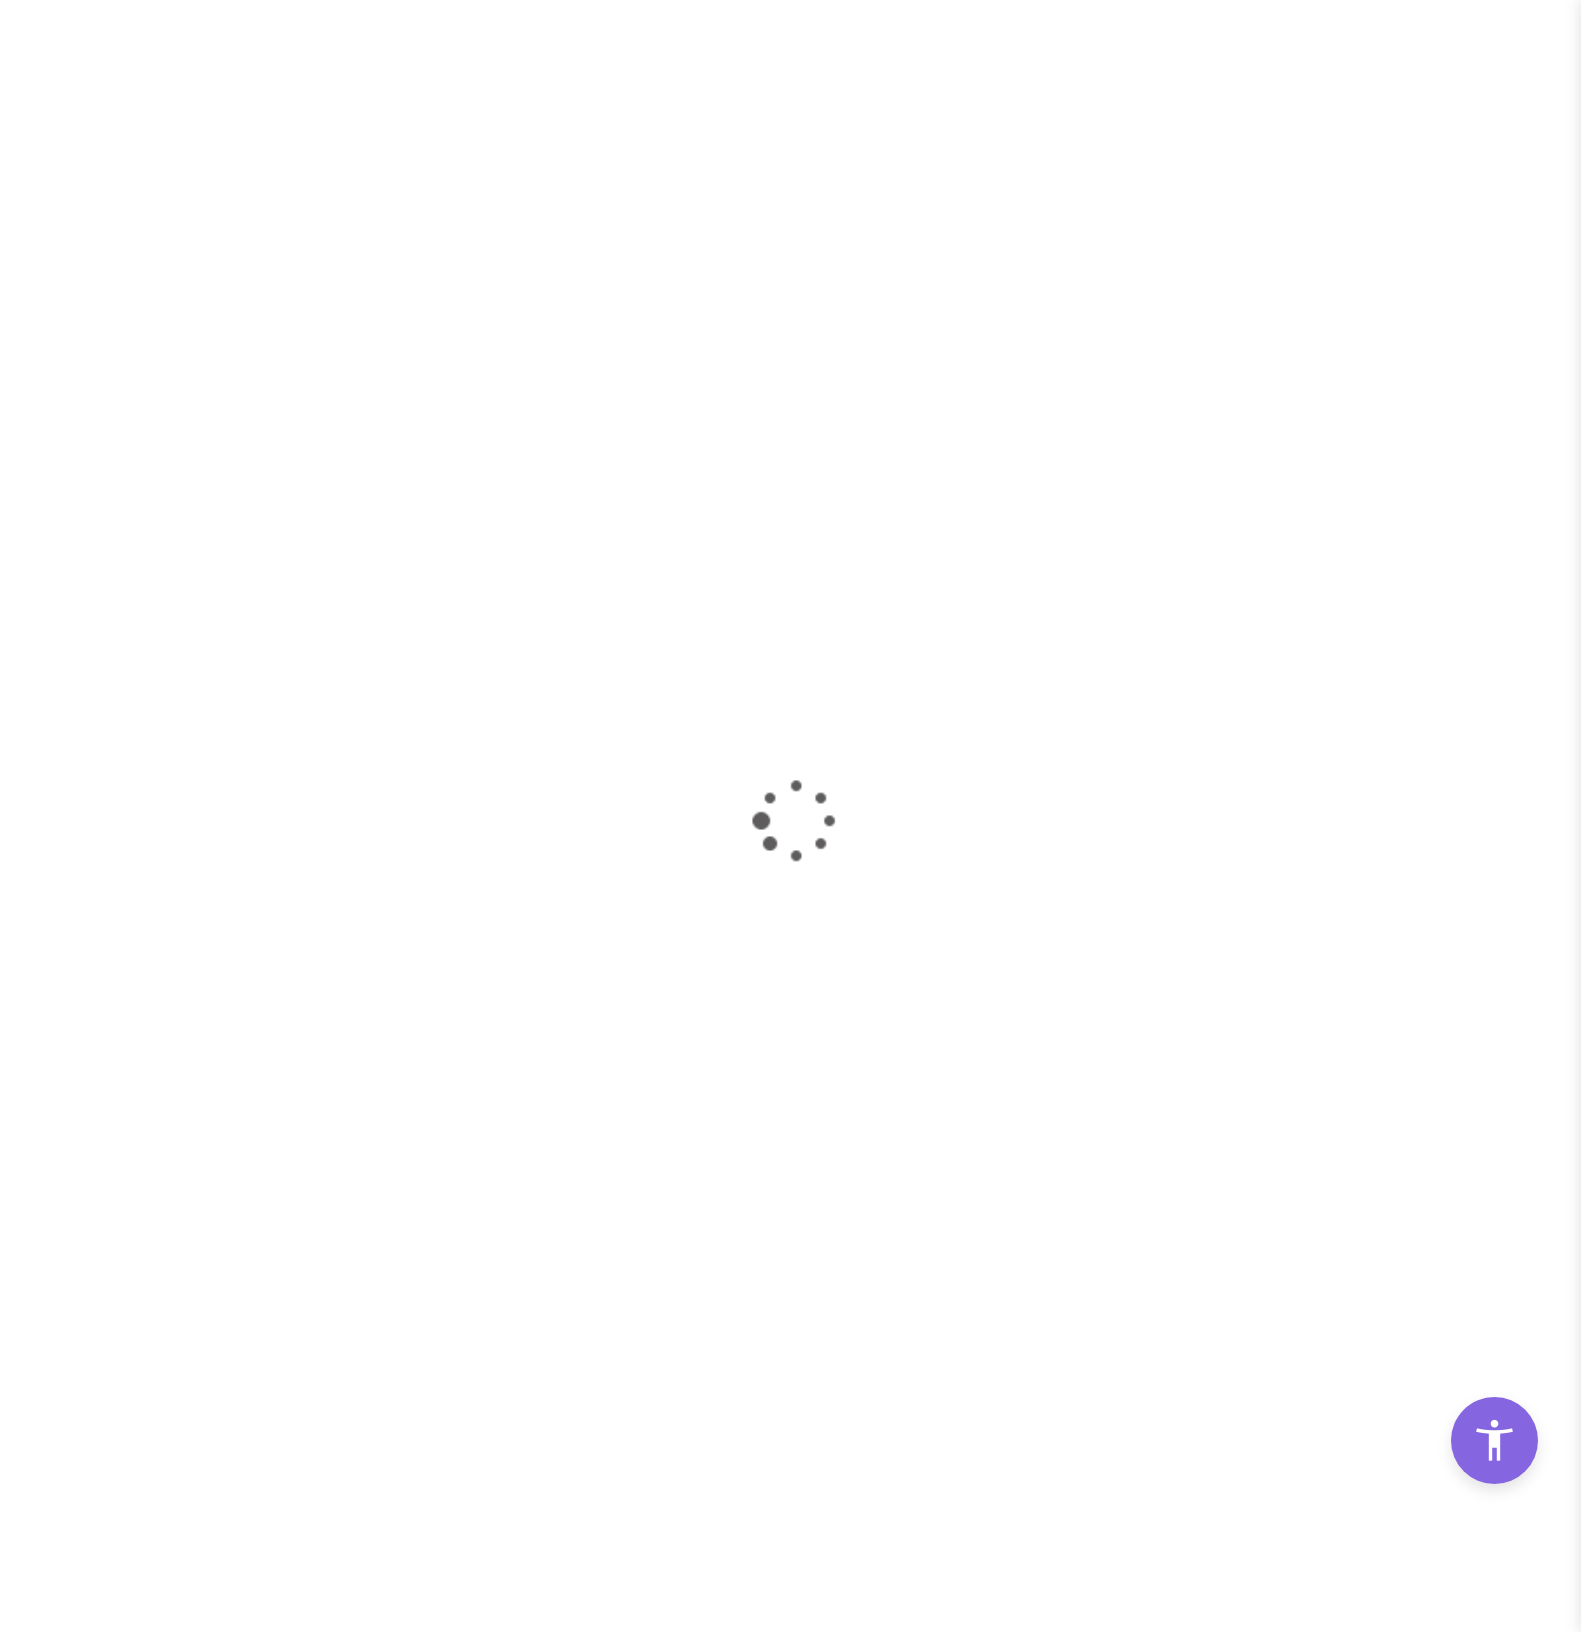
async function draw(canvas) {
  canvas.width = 1581
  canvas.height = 1632
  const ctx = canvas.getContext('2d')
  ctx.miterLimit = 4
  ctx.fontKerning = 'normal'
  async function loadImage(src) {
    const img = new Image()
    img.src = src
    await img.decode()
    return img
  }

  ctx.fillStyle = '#fff'
  ctx.fillRect(0, 0, 1581, 1632)
  ctx.drawImage(await loadImage('image0.png'), 752, 780, 84, 82)
  ctx.fillStyle = '#0000001a'
  ctx.filter = 'blur(7px)'
  ctx.beginPath()
  ctx.rect(1579, 0, 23, 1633)
  ctx.fill()
  ctx.filter = 'none'
  ctx.filter = 'blur(7px)'
  ctx.beginPath()
  ctx.roundRect(1451, 1404, 87, 87, 43.5)
  ctx.fill()
  ctx.filter = 'none'
  ctx.fillStyle = '#8665e0'
  ctx.beginPath()
  ctx.arc(1494.5, 1440.5, 43.5, 0, 2 * Math.PI)
  ctx.fill()
  ctx.drawImage(await loadImage('image1.png'), 1476, 1419, 37, 42)
}

draw(document.querySelector('canvas'))
